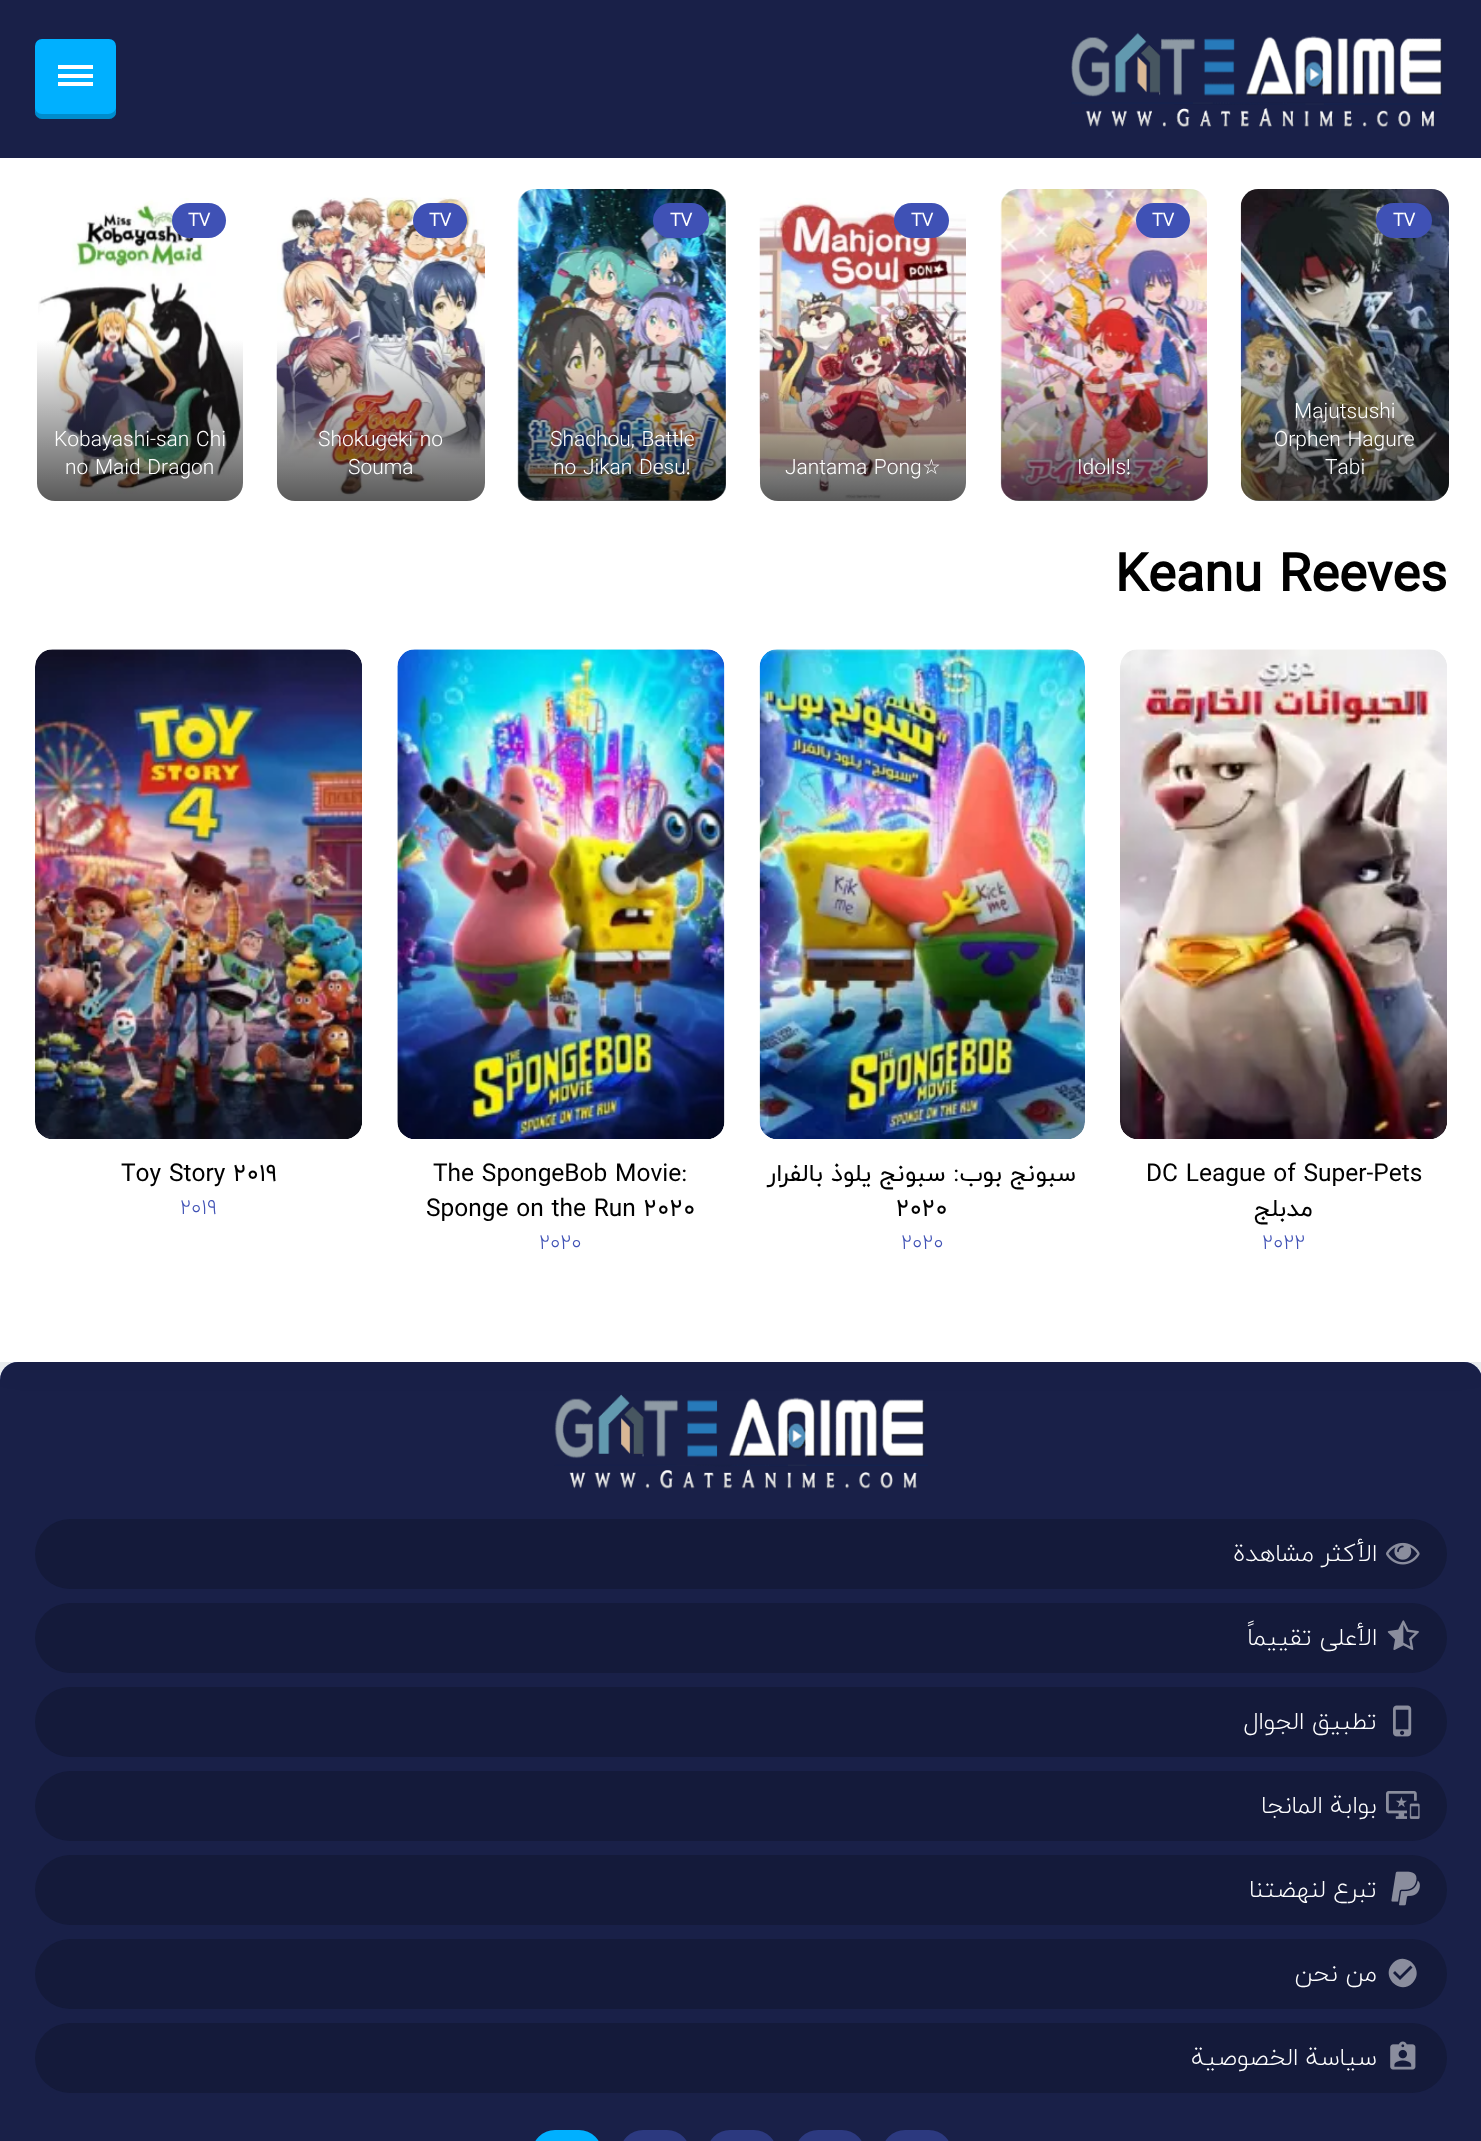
async function draw(canvas) {
  canvas.width = 1481
  canvas.height = 2141
  const ctx = canvas.getContext('2d')
  ctx.miterLimit = 4
  ctx.fontKerning = 'normal'
  async function loadImage(src) {
    const img = new Image()
    img.src = src
    await img.decode()
    return img
  }
  let gradient

  ctx.fillStyle = '#eceff1'
  ctx.fillRect(0, 0, 1481, 2141)
  ctx.fillStyle = '#3f51b5'
  ctx.beginPath()
  ctx.roundRect(0, 1362, 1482, 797, 18)
  ctx.fill()
  ctx.fillStyle = '#00000099'
  ctx.beginPath()
  ctx.roundRect(0, 1362, 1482, 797, 18)
  ctx.fill()
  ctx.drawImage(await loadImage('image11.png'), 554, 1394, 374, 95)
  ctx.fillStyle = '#0000000d'
  ctx.filter = 'blur(17.5px)'
  ctx.beginPath()
  ctx.rect(0, 158, 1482, 1204)
  ctx.fill()
  ctx.filter = 'none'
  ctx.fillStyle = '#192048'
  ctx.fillRect(0, 0, 1481, 158)
  ctx.fillStyle = '#00b0ff'
  ctx.beginPath()
  ctx.roundRect(35, 39, 81, 80, 7)
  ctx.fill()
  ctx.fillStyle = '#00000033'
  ctx.beginPath()
  ctx.moveTo(35, 107)
  ctx.bezierCurveTo(35, 121, 39, 119, 53, 119)
  ctx.lineTo(98, 119)
  ctx.bezierCurveTo(112, 119, 116, 121, 116, 107)
  ctx.bezierCurveTo(116, 111, 112, 114, 108, 114)
  ctx.lineTo(42, 114)
  ctx.bezierCurveTo(38, 114, 35, 111, 35, 107)
  ctx.closePath()
  ctx.fill()
  ctx.fillStyle = '#fff'
  ctx.fillRect(58, 65, 35, 4)
  ctx.fillRect(58, 74, 35, 4)
  ctx.fillRect(58, 82, 35, 4)
  ctx.drawImage(await loadImage('image0.png'), 1071, 32, 371, 95)
  ctx.fillRect(0, 158, 1481, 1204)
  ctx.drawImage(await loadImage('image1.png'), 38, 198, 204, 296)
  ctx.fillStyle = '#3f51b5'
  ctx.beginPath()
  ctx.roundRect(172, 203, 54, 35, 17.5)
  ctx.fill()
  ctx.font = 'bold 18px "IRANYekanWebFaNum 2"'
  ctx.fillStyle = '#fff'
  ctx.fillText('TV', 188, 226)
  gradient = ctx.createLinearGradient(140, 340, 140, 501)
  gradient.addColorStop(0, '#00000000')
  gradient.addColorStop(1, '#000000a6')
  ctx.fillStyle = gradient
  ctx.beginPath()
  ctx.roundRect(37, 340, 206, 161, [0, 0, 18, 18])
  ctx.fill()
  ctx.font = '300 21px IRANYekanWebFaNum'
  ctx.fillStyle = '#fff'
  ctx.fillText('Kobayashi-san Chi', 54, 446)
  ctx.fillText('no Maid Dragon', 65, 474)
  ctx.drawImage(await loadImage('image2.png'), 276, 197, 209, 299)
  ctx.fillStyle = '#3f51b5'
  ctx.beginPath()
  ctx.roundRect(413, 203, 54, 35, 17.5)
  ctx.fill()
  ctx.font = 'bold 18px "IRANYekanWebFaNum 2"'
  ctx.fillStyle = '#fff'
  ctx.fillText('TV', 429, 226)
  gradient = ctx.createLinearGradient(381, 340, 381, 501)
  gradient.addColorStop(0, '#00000000')
  gradient.addColorStop(1, '#000000a6')
  ctx.fillStyle = gradient
  ctx.beginPath()
  ctx.roundRect(277, 340, 208, 161, [0, 0, 18, 18])
  ctx.fill()
  ctx.font = '300 21px IRANYekanWebFaNum'
  ctx.fillStyle = '#fff'
  ctx.fillText('Shokugeki no', 318, 446)
  ctx.fillText('Souma', 348, 474)
  ctx.drawImage(await loadImage('image3.png'), 517, 189, 209, 312)
  ctx.fillStyle = '#3f51b5'
  ctx.beginPath()
  ctx.roundRect(653, 203, 56, 35, 17.5)
  ctx.fill()
  ctx.font = 'bold 18px "IRANYekanWebFaNum 2"'
  ctx.fillStyle = '#fff'
  ctx.fillText('TV', 670, 226)
  gradient = ctx.createLinearGradient(622, 340, 622, 501)
  gradient.addColorStop(0, '#00000000')
  gradient.addColorStop(1, '#000000a6')
  ctx.fillStyle = gradient
  ctx.beginPath()
  ctx.roundRect(518, 340, 208, 161, [0, 0, 18, 18])
  ctx.fill()
  ctx.font = '300 21px IRANYekanWebFaNum'
  ctx.fillStyle = '#fff'
  ctx.fillText('Shachou, Battle', 550, 446)
  ctx.fillText('no Jikan Desu!', 553, 474)
  ctx.drawImage(await loadImage('image4.png'), 759, 198, 207, 301)
  ctx.fillStyle = '#3f51b5'
  ctx.beginPath()
  ctx.roundRect(894, 203, 55, 35, 17.5)
  ctx.fill()
  ctx.font = 'bold 18px "IRANYekanWebFaNum 2"'
  ctx.fillStyle = '#fff'
  ctx.fillText('TV', 911, 226)
  gradient = ctx.createLinearGradient(863, 368, 863, 501)
  gradient.addColorStop(0, '#00000000')
  gradient.addColorStop(1, '#000000a6')
  ctx.fillStyle = gradient
  ctx.beginPath()
  ctx.roundRect(760, 368, 206, 133, [0, 0, 18, 18])
  ctx.fill()
  ctx.font = '300 21px IRANYekanWebFaNum'
  ctx.fillStyle = '#fff'
  ctx.fillText('Jantama Pong', 785, 474)
  ctx.font = '21px DejaVu Sans'
  ctx.fillText('☆', 922, 474)
  ctx.drawImage(await loadImage('image5.png'), 1000, 189, 207, 312)
  ctx.fillStyle = '#3f51b5'
  ctx.beginPath()
  ctx.roundRect(1136, 203, 54, 35, 17.5)
  ctx.fill()
  ctx.font = 'bold 18px "IRANYekanWebFaNum 2"'
  ctx.fillStyle = '#fff'
  ctx.fillText('TV', 1152, 226)
  gradient = ctx.createLinearGradient(1104, 368, 1104, 501)
  gradient.addColorStop(0, '#00000000')
  gradient.addColorStop(1, '#000000a6')
  ctx.fillStyle = gradient
  ctx.beginPath()
  ctx.roundRect(1001, 368, 207, 133, [0, 0, 18, 18])
  ctx.fill()
  ctx.font = '300 21px IRANYekanWebFaNum'
  ctx.fillStyle = '#fff'
  ctx.fillText('Idolls!', 1077, 474)
  ctx.drawImage(await loadImage('image6.png'), 1240, 189, 209, 312)
  ctx.fillStyle = '#3f51b5'
  ctx.beginPath()
  ctx.roundRect(1376, 203, 56, 35, 17.5)
  ctx.fill()
  ctx.font = 'bold 18px "IRANYekanWebFaNum 2"'
  ctx.fillStyle = '#fff'
  ctx.fillText('TV', 1393, 226)
  gradient = ctx.createLinearGradient(1345, 312, 1345, 501)
  gradient.addColorStop(0, '#00000000')
  gradient.addColorStop(1, '#000000a6')
  ctx.fillStyle = gradient
  ctx.beginPath()
  ctx.roundRect(1241, 312, 208, 189, [0, 0, 18, 18])
  ctx.fill()
  ctx.font = '300 21px IRANYekanWebFaNum'
  ctx.fillStyle = '#fff'
  ctx.fillText('Majutsushi', 1294, 418)
  ctx.fillText('Orphen Hagure', 1274, 446)
  ctx.fillText('Tabi', 1325, 474)
  ctx.font = 'bold 52.5px IRANYekanWebFaNum'
  ctx.fillStyle = '#000'
  ctx.fillText('Keanu Reeves', 1115, 591)
  ctx.drawImage(await loadImage('image7.png'), 35, 649, 327, 490)
  ctx.font = '24.5px IRANYekanWebFaNum'
  ctx.fillText('Toy Story 2019', 121, 1181)
  ctx.font = '300 21px IRANYekanWebFaNum'
  ctx.fillStyle = '#3f51b5'
  ctx.fillText('2019', 180, 1214)
  ctx.drawImage(await loadImage('image8.png'), 397, 649, 328, 490)
  ctx.font = '24.5px IRANYekanWebFaNum'
  ctx.fillStyle = '#000'
  ctx.fillText('The SpongeBob Movie:', 433, 1181)
  ctx.fillText('Sponge on the Run 2020', 426, 1216)
  ctx.font = '300 21px IRANYekanWebFaNum'
  ctx.fillStyle = '#3f51b5'
  ctx.fillText('2020', 539, 1249)
  ctx.drawImage(await loadImage('image9.png'), 759, 649, 326, 490)
  ctx.direction = 'rtl'
  ctx.font = '24.5px IRANYekanWebFaNum'
  ctx.fillStyle = '#000'
  ctx.fillText('سبونج بوب: سبونج يلوذ بالفرار', 1076, 1181)
  ctx.direction = 'ltr'
  ctx.fillText('2020', 896, 1216)
  ctx.font = '300 21px IRANYekanWebFaNum'
  ctx.fillStyle = '#3f51b5'
  ctx.fillText('2020', 901, 1249)
  ctx.drawImage(await loadImage('image10.png'), 1120, 649, 327, 490)
  ctx.font = '24.5px IRANYekanWebFaNum'
  ctx.fillStyle = '#000'
  ctx.fillText('DC League of Super-Pets', 1146, 1181)
  ctx.direction = 'rtl'
  ctx.fillText('مدبلج', 1313, 1216)
  ctx.direction = 'ltr'
  ctx.font = '300 21px IRANYekanWebFaNum'
  ctx.fillStyle = '#3f51b5'
  ctx.fillText('2022', 1262, 1249)
  ctx.fillStyle = '#141a3a'
  ctx.beginPath()
  ctx.roundRect(35, 1519, 1412, 70, 35)
  ctx.fill()
  ctx.direction = 'rtl'
  ctx.font = '300 24.5px IRANYekanWebFaNum'
  ctx.fillStyle = '#fff'
  ctx.fillText('الأكثر مشاهدة', 1377, 1561)
  ctx.drawImage(await loadImage('image12.png'), 1386, 1542, 34, 23)
  ctx.fillStyle = '#141a3a'
  ctx.beginPath()
  ctx.roundRect(35, 1603, 1412, 70, 35)
  ctx.fill()
  ctx.fillStyle = '#fff'
  ctx.fillText('الأعلى تقييماً', 1377, 1645)
  ctx.drawImage(await loadImage('image13.png'), 1387, 1620, 32, 30)
  ctx.fillStyle = '#141a3a'
  ctx.beginPath()
  ctx.roundRect(35, 1687, 1412, 70, 35)
  ctx.fill()
  ctx.fillStyle = '#fff'
  ctx.fillText('تطبيق الجوال', 1377, 1729)
  ctx.drawImage(await loadImage('image14.png'), 1393, 1705, 19, 32)
  ctx.fillStyle = '#141a3a'
  ctx.beginPath()
  ctx.roundRect(35, 1771, 1412, 70, 35)
  ctx.fill()
  ctx.fillStyle = '#fff'
  ctx.fillText('بوابة المانجا', 1377, 1813)
  ctx.drawImage(await loadImage('image15.png'), 1386, 1791, 34, 28)
  ctx.fillStyle = '#141a3a'
  ctx.beginPath()
  ctx.roundRect(35, 1855, 1412, 70, 35)
  ctx.fill()
  ctx.fillStyle = '#fff'
  ctx.fillText('تبرع لنهضتنا', 1377, 1897)
  ctx.drawImage(await loadImage('image16.png'), 1391, 1871, 29, 35)
  ctx.fillStyle = '#141a3a'
  ctx.beginPath()
  ctx.roundRect(35, 1939, 1412, 70, 35)
  ctx.fill()
  ctx.fillStyle = '#fff'
  ctx.fillText('من نحن', 1377, 1981)
  ctx.fillStyle = '#8a8d9d'
  ctx.beginPath()
  ctx.moveTo(1400, 1980)
  ctx.lineTo(1412.5, 1967.5)
  ctx.lineTo(1410.5, 1965.5)
  ctx.lineTo(1400, 1976)
  ctx.lineTo(1395, 1971)
  ctx.lineTo(1393, 1973)
  ctx.closePath()
  ctx.moveTo(1393, 1963)
  ctx.bezierCurveTo(1406, 1950, 1425.5, 1970, 1412.5, 1983)
  ctx.bezierCurveTo(1399.5, 1996, 1380, 1976, 1393, 1963)
  ctx.closePath()
  ctx.fill()
  ctx.fillStyle = '#141a3a'
  ctx.beginPath()
  ctx.roundRect(35, 2023, 1412, 70, 35)
  ctx.fill()
  ctx.fillStyle = '#fff'
  ctx.fillText('سياسة الخصوصية', 1377, 2065)
  ctx.drawImage(await loadImage('image17.png'), 1390, 2041, 26, 29)
  ctx.fillStyle = '#00b0ff'
  ctx.beginPath()
  ctx.roundRect(532, 2130, 70, 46, 35)
  ctx.fill()
  ctx.fillStyle = '#2c397f'
  ctx.beginPath()
  ctx.roundRect(620, 2130, 70, 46, 35)
  ctx.fill()
  ctx.beginPath()
  ctx.roundRect(707, 2130, 70, 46, 35)
  ctx.fill()
  ctx.beginPath()
  ctx.roundRect(795, 2130, 70, 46, 35)
  ctx.fill()
  ctx.beginPath()
  ctx.roundRect(882, 2130, 70, 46, 35)
  ctx.fill()
}

draw(document.querySelector('canvas'))
